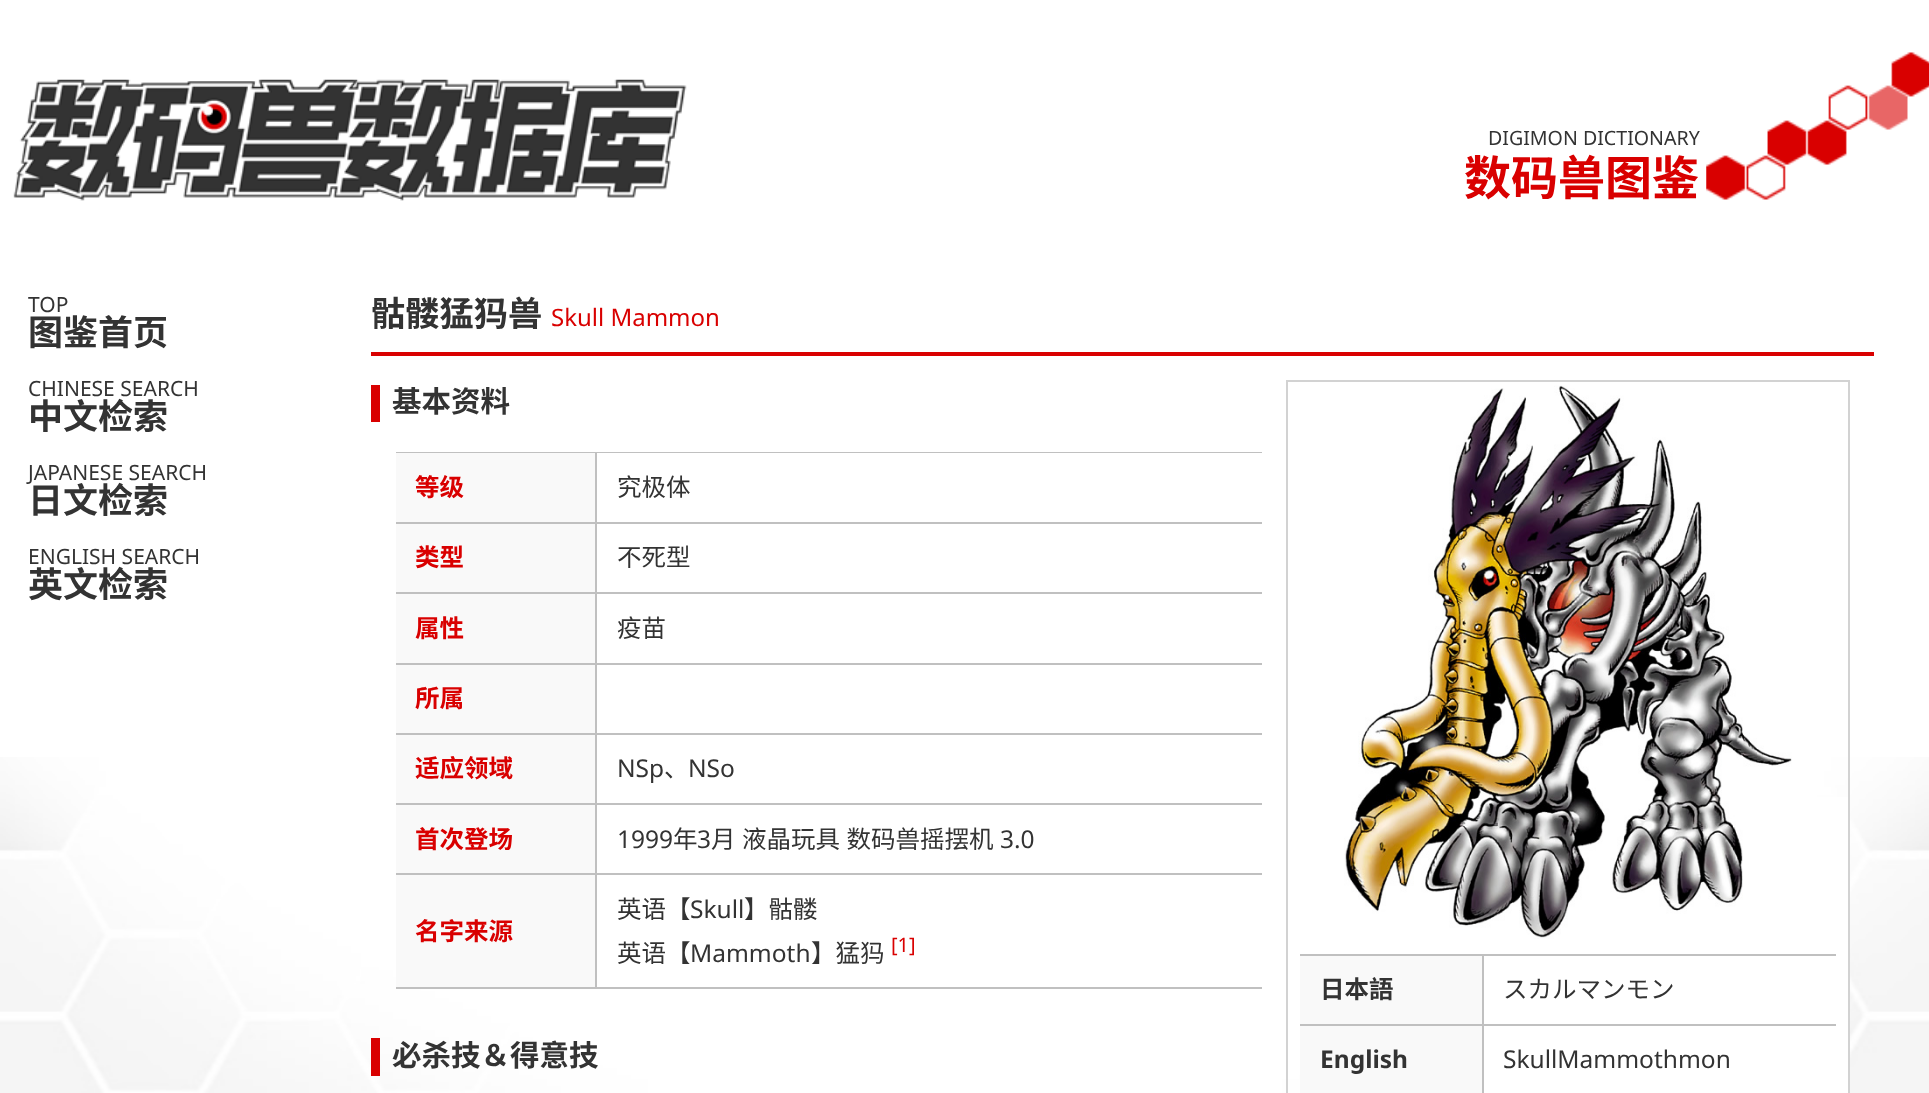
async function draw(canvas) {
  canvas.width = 1929
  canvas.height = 1093
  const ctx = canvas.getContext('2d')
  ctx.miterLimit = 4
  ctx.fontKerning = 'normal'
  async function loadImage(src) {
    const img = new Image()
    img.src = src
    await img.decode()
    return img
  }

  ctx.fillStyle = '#fff'
  ctx.fillRect(0, 0, 1929, 1093)
  ctx.drawImage(await loadImage('image0.png'), 0, 757, 1929, 336)
  ctx.drawImage(await loadImage('image1.png'), 13, 79, 674, 122)
  ctx.font = '21px Noto Sans'
  ctx.fillStyle = '#333'
  ctx.fillText('TOP', 28, 312)
  ctx.font = 'bold 35px Noto Sans SC'
  ctx.fillText('图鉴首页', 28, 345)
  ctx.font = '21px Noto Sans'
  ctx.fillText('CHINESE SEARCH', 28, 396)
  ctx.font = 'bold 35px Noto Sans SC'
  ctx.fillText('中文检索', 28, 429)
  ctx.font = '21px Noto Sans'
  ctx.fillText('JAPANESE SEARCH', 28, 480)
  ctx.font = 'bold 35px Noto Sans SC'
  ctx.fillText('日文检索', 28, 513)
  ctx.font = '21px Noto Sans'
  ctx.fillText('ENGLISH SEARCH', 28, 564)
  ctx.font = 'bold 35px Noto Sans SC'
  ctx.fillText('英文检索', 28, 597)
  ctx.drawImage(await loadImage('image2.png'), 1706, 52, 223, 148)
  ctx.font = '19.6px Noto Sans'
  ctx.fillText('DIGIMON DICTIONARY', 1488, 145)
  ctx.font = 'bold 47px Noto Sans SC'
  ctx.fillStyle = '#d90000'
  ctx.fillText('数码兽图鉴', 1464, 195)
  ctx.fillRect(371, 352, 1503, 4)
  ctx.font = 'bold 34.25px Noto Sans SC'
  ctx.fillStyle = '#333'
  ctx.fillText('骷髅猛犸兽', 371, 326)
  ctx.font = '24px Noto Sans'
  ctx.fillStyle = '#d90000'
  ctx.fillText('Skull Mammon', 551, 326)
  ctx.fillRect(371, 385, 9, 37)
  ctx.font = 'bold 29.5px Noto Sans SC'
  ctx.fillStyle = '#333'
  ctx.fillText('基本资料', 392, 412)
  ctx.fillStyle = '#c0c0c0'
  ctx.fillRect(396, 452, 866, 1)
  ctx.fillRect(396, 987, 866, 2)
  ctx.fillStyle = '#f9f9f9'
  ctx.fillRect(396, 453, 199, 69)
  ctx.font = 'bold 24.5px Noto Sans SC'
  ctx.fillStyle = '#d90000'
  ctx.fillText('等级', 415, 496)
  ctx.font = '24.5px Noto Sans SC'
  ctx.fillStyle = '#333'
  ctx.fillText('究极体', 617, 496)
  ctx.fillStyle = '#c0c0c0'
  ctx.fillRect(396, 522, 866, 2)
  ctx.fillStyle = '#f9f9f9'
  ctx.fillRect(396, 524, 199, 68)
  ctx.font = 'bold 24.5px Noto Sans SC'
  ctx.fillStyle = '#d90000'
  ctx.fillText('类型', 415, 566)
  ctx.font = '24.5px Noto Sans SC'
  ctx.fillStyle = '#333'
  ctx.fillText('不死型', 617, 566)
  ctx.fillStyle = '#c0c0c0'
  ctx.fillRect(396, 592, 866, 2)
  ctx.fillStyle = '#f9f9f9'
  ctx.fillRect(396, 594, 199, 69)
  ctx.font = 'bold 24.5px Noto Sans SC'
  ctx.fillStyle = '#d90000'
  ctx.fillText('属性', 415, 637)
  ctx.font = '24.5px Noto Sans SC'
  ctx.fillStyle = '#333'
  ctx.fillText('疫苗', 617, 637)
  ctx.fillStyle = '#c0c0c0'
  ctx.fillRect(396, 663, 866, 2)
  ctx.fillStyle = '#f9f9f9'
  ctx.fillRect(396, 665, 199, 68)
  ctx.font = 'bold 24.5px Noto Sans SC'
  ctx.fillStyle = '#d90000'
  ctx.fillText('所属', 415, 707)
  ctx.fillStyle = '#c0c0c0'
  ctx.fillRect(396, 733, 866, 2)
  ctx.fillStyle = '#f9f9f9'
  ctx.fillRect(396, 735, 199, 68)
  ctx.fillStyle = '#d90000'
  ctx.fillText('适应领域', 415, 777)
  ctx.font = '24.5px Noto Sans'
  ctx.fillStyle = '#333'
  ctx.fillText('NSp', 617, 777)
  ctx.font = '24.5px Noto Sans SC'
  ctx.fillText('、', 664, 777)
  ctx.font = '24.5px Noto Sans'
  ctx.fillText('NSo', 688, 777)
  ctx.fillStyle = '#c0c0c0'
  ctx.fillRect(396, 803, 866, 2)
  ctx.fillStyle = '#f9f9f9'
  ctx.fillRect(396, 805, 199, 68)
  ctx.font = 'bold 24.5px Noto Sans SC'
  ctx.fillStyle = '#d90000'
  ctx.fillText('首次登场', 415, 848)
  ctx.font = '24.5px Noto Sans'
  ctx.fillStyle = '#333'
  ctx.fillText('1999', 617, 848)
  ctx.font = '24.5px Noto Sans SC'
  ctx.fillText('年', 673, 848)
  ctx.font = '24.5px Noto Sans'
  ctx.fillText('3', 697, 848)
  ctx.wordSpacing = '1px'
  ctx.font = '24.5px Noto Sans SC'
  ctx.fillText('月 液晶玩具 数码兽摇摆机', 711, 848)
  ctx.wordSpacing = '0px'
  ctx.font = '24.5px Noto Sans'
  ctx.fillText('3.0', 1000, 848)
  ctx.fillStyle = '#c0c0c0'
  ctx.fillRect(396, 873, 866, 2)
  ctx.fillStyle = '#f9f9f9'
  ctx.fillRect(396, 875, 199, 112)
  ctx.fillStyle = '#c0c0c0'
  ctx.fillRect(595, 453, 2, 534)
  ctx.font = 'bold 24.5px Noto Sans SC'
  ctx.fillStyle = '#d90000'
  ctx.fillText('名字来源', 415, 940)
  ctx.font = '24.5px Noto Sans SC'
  ctx.fillStyle = '#333'
  ctx.fillText('英语【', 617, 918)
  ctx.font = '24.5px Noto Sans'
  ctx.fillText('Skull', 690, 918)
  ctx.font = '24.5px Noto Sans SC'
  ctx.fillText('】骷髅', 744, 918)
  ctx.fillText('英语【', 617, 962)
  ctx.font = '24.5px Noto Sans'
  ctx.fillText('Mammoth', 690, 962)
  ctx.font = '24.5px Noto Sans SC'
  ctx.fillText('】猛犸', 811, 962)
  ctx.font = '20px Noto Sans'
  ctx.fillStyle = '#d90000'
  ctx.fillText('[1]', 891, 952)
  ctx.fillRect(371, 1038, 9, 38)
  ctx.font = 'bold 29.5px Noto Sans SC'
  ctx.fillStyle = '#333'
  ctx.fillText('必杀技＆得意技', 392, 1066)
  ctx.fillStyle = '#fff'
  ctx.fillRect(1425, 797, 423, 296)
  ctx.strokeStyle = '#d2d2d2'
  ctx.lineWidth = 2
  ctx.strokeRect(1287, 381, 562, 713)
  ctx.drawImage(await loadImage('image3.png'), 1344, 385, 448, 554)
  ctx.fillStyle = '#c0c0c0'
  ctx.fillRect(1300, 954, 536, 2)
  ctx.fillStyle = '#f9f9f9'
  ctx.fillRect(1300, 956, 182, 68)
  ctx.font = 'bold 24.5px Noto Sans SC'
  ctx.fillStyle = '#333'
  ctx.fillText('日本語', 1320, 998)
  ctx.font = '24.5px Noto Sans SC'
  ctx.fillText('スカルマンモン', 1503, 998)
  ctx.fillStyle = '#c0c0c0'
  ctx.fillRect(1300, 1024, 536, 2)
  ctx.fillStyle = '#f9f9f9'
  ctx.fillRect(1300, 1026, 182, 67)
  ctx.fillStyle = '#c0c0c0'
  ctx.fillRect(1482, 956, 2, 137)
  ctx.font = 'bold 24.5px Noto Sans'
  ctx.fillStyle = '#333'
  ctx.fillText('English', 1320, 1068)
  ctx.font = '24.5px Noto Sans'
  ctx.fillText('SkullMammothmon', 1503, 1068)
}

draw(document.querySelector('canvas'))
